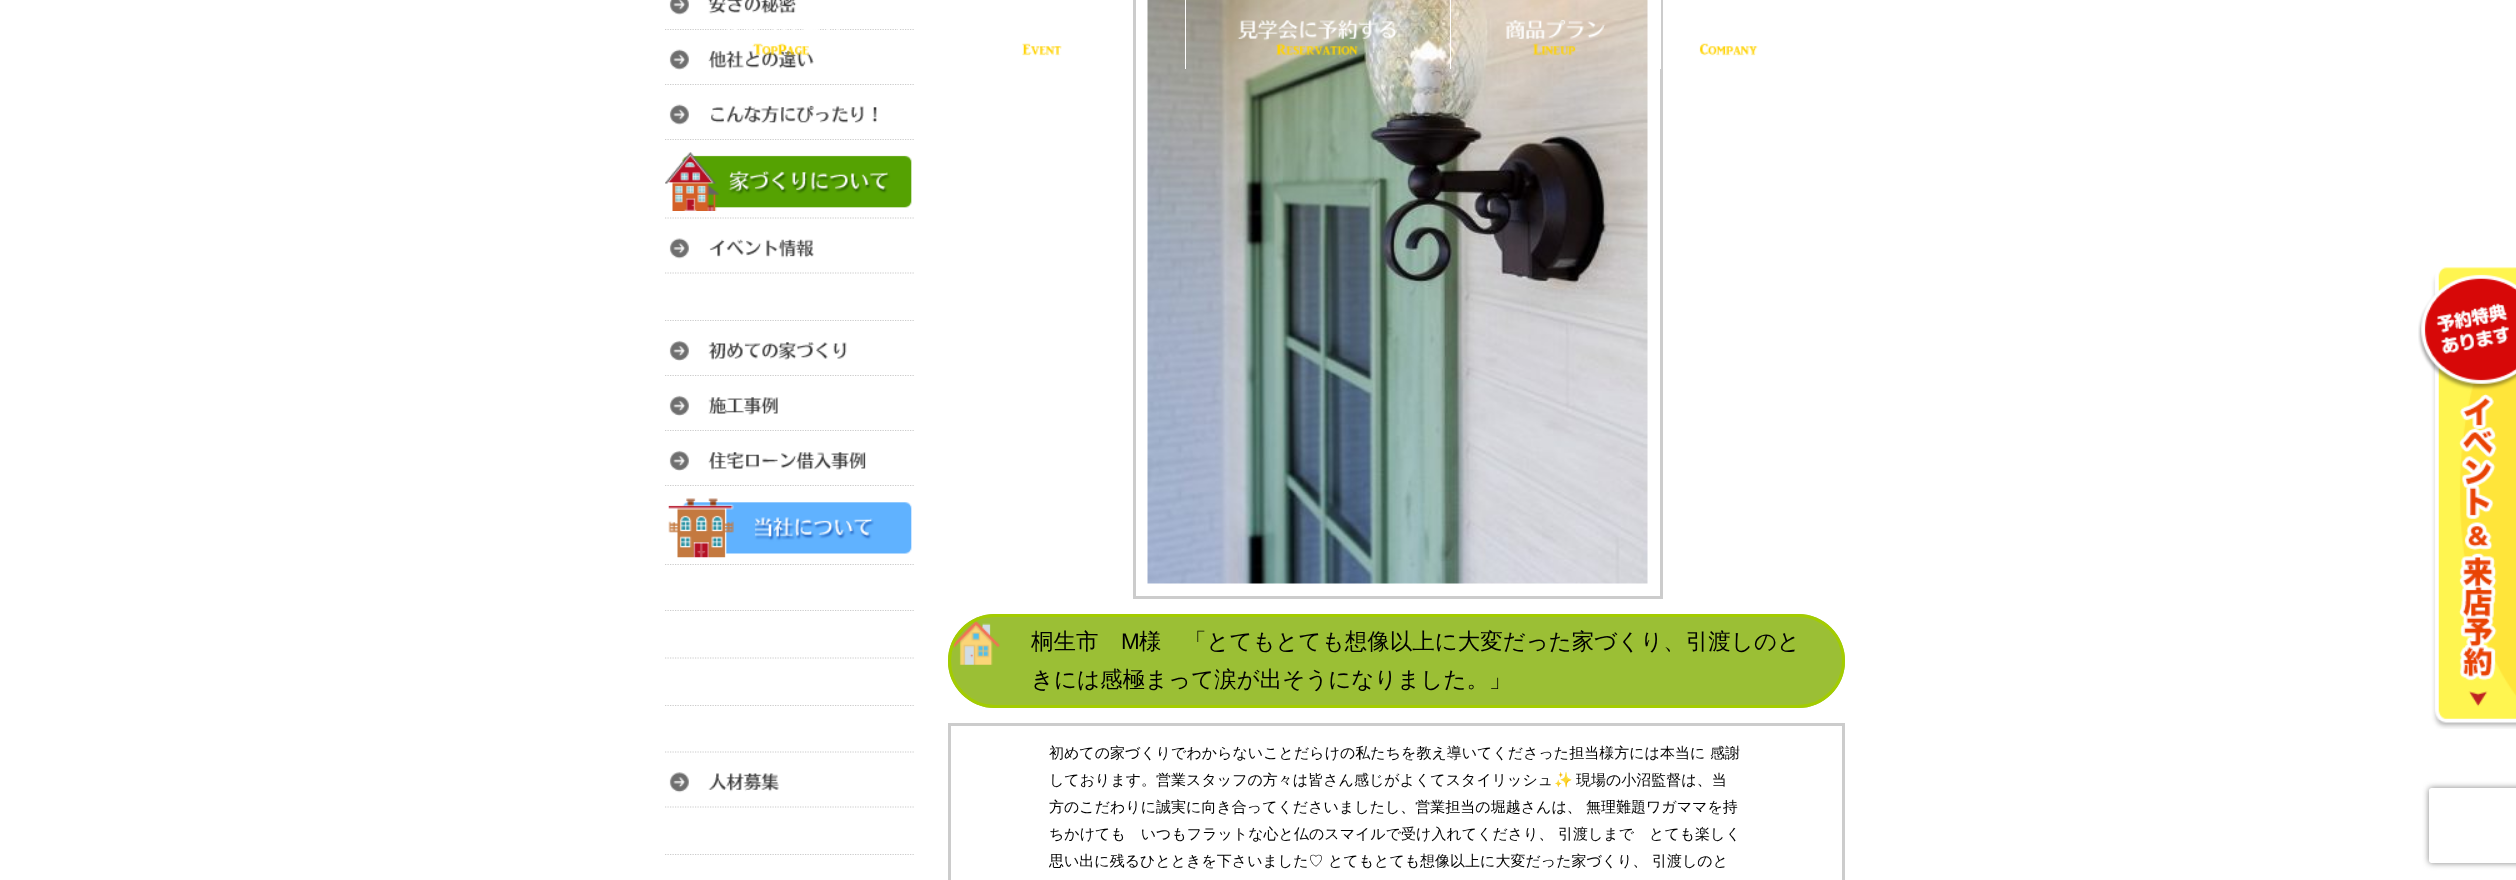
async function draw(canvas) {
  canvas.width = 2516
  canvas.height = 880
  const ctx = canvas.getContext('2d')
  ctx.miterLimit = 4
  ctx.fontKerning = 'normal'
  async function loadImage(src) {
    const img = new Image()
    img.src = src
    await img.decode()
    return img
  }

  ctx.fillStyle = '#fff'
  ctx.fillRect(0, 0, 2516, 880)
  ctx.beginPath()
  ctx.moveTo(665, 29.5)
  ctx.lineTo(915, 29.5)
  ctx.strokeStyle = '#ccc'
  ctx.lineWidth = 1.2
  ctx.setLineDash([1.25, 1.25])
  ctx.stroke()
  ctx.fillRect(898, 28, 1, 3)
  ctx.drawImage(await loadImage('image6.png'), 669, 49, 145, 21)
  ctx.drawImage(await loadImage('image0.png'), 727, 28, 112, 28)
  ctx.lineWidth = 3
  ctx.setLineDash([])
  ctx.strokeRect(1134.5, -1.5, 527, 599)
  ctx.drawImage(await loadImage('image15.png'), 1147, 0, 501, 584)
  ctx.fillRect(1185, 0, 1, 69)
  ctx.drawImage(await loadImage('image1.png'), 1022, 43, 40, 13)
  ctx.fillRect(1450, 0, 1, 69)
  ctx.drawImage(await loadImage('image2.png'), 1237, 20, 160, 36)
  ctx.fillRect(1660, 0, 1, 69)
  ctx.drawImage(await loadImage('image3.png'), 1505, 20, 100, 36)
  ctx.drawImage(await loadImage('image4.png'), 1699, 43, 59, 13)
  ctx.drawImage(await loadImage('image5.png'), 669, 0, 128, 15)
  ctx.beginPath()
  ctx.moveTo(665, 84.5)
  ctx.lineTo(915, 84.5)
  ctx.lineWidth = 1.2
  ctx.setLineDash([1.25, 1.25])
  ctx.stroke()
  ctx.beginPath()
  ctx.moveTo(665, 139.5)
  ctx.lineTo(915, 139.5)
  ctx.stroke()
  ctx.drawImage(await loadImage('image7.png'), 669, 104, 208, 21)
  ctx.beginPath()
  ctx.moveTo(665, 218)
  ctx.lineTo(915, 218)
  ctx.stroke()
  ctx.drawImage(await loadImage('image8.png'), 665, 152, 247, 59)
  ctx.beginPath()
  ctx.moveTo(665, 273)
  ctx.lineTo(915, 273)
  ctx.stroke()
  ctx.drawImage(await loadImage('image9.png'), 669, 238, 145, 21)
  ctx.beginPath()
  ctx.moveTo(665, 320.5)
  ctx.lineTo(915, 320.5)
  ctx.stroke()
  ctx.beginPath()
  ctx.moveTo(665, 375.5)
  ctx.lineTo(915, 375.5)
  ctx.stroke()
  ctx.drawImage(await loadImage('image10.png'), 669, 340, 178, 21)
  ctx.beginPath()
  ctx.moveTo(665, 430.5)
  ctx.lineTo(915, 430.5)
  ctx.stroke()
  ctx.drawImage(await loadImage('image11.png'), 669, 395, 110, 21)
  ctx.beginPath()
  ctx.moveTo(665, 485.5)
  ctx.lineTo(915, 485.5)
  ctx.stroke()
  ctx.drawImage(await loadImage('image12.png'), 669, 450, 197, 21)
  ctx.beginPath()
  ctx.moveTo(665, 564.5)
  ctx.lineTo(915, 564.5)
  ctx.stroke()
  ctx.drawImage(await loadImage('image13.png'), 668, 498, 244, 60)
  ctx.beginPath()
  ctx.moveTo(665, 610.5)
  ctx.lineTo(915, 610.5)
  ctx.stroke()
  ctx.beginPath()
  ctx.moveTo(665, 658)
  ctx.lineTo(915, 658)
  ctx.stroke()
  ctx.beginPath()
  ctx.moveTo(665, 705.5)
  ctx.lineTo(915, 705.5)
  ctx.stroke()
  ctx.beginPath()
  ctx.moveTo(665, 752)
  ctx.lineTo(915, 752)
  ctx.stroke()
  ctx.beginPath()
  ctx.moveTo(665, 807)
  ctx.lineTo(915, 807)
  ctx.stroke()
  ctx.drawImage(await loadImage('image14.png'), 669, 772, 110, 21)
  ctx.beginPath()
  ctx.moveTo(665, 854.5)
  ctx.lineTo(915, 854.5)
  ctx.stroke()
  ctx.fillStyle = '#9bbf35'
  ctx.beginPath()
  ctx.roundRect(948, 614, 897, 94, 47)
  ctx.fill()
  ctx.drawImage(await loadImage('image16.png'), 953, 621, 47, 44)
  ctx.beginPath()
  ctx.roundRect(949.5, 615.5, 894, 91, 45.5)
  ctx.strokeStyle = '#a3cc00'
  ctx.lineWidth = 3
  ctx.setLineDash([])
  ctx.stroke()
  ctx.font = '500 22.5px WenQuanYi Zen Hei'
  ctx.fillStyle = '#000'
  ctx.fillText('桐生市', 1031, 649)
  ctx.font = '22.5px Liberation Sans'
  ctx.fillText('M', 1121, 649)
  ctx.font = '500 22.5px WenQuanYi Zen Hei'
  ctx.fillText('様', 1139, 649)
  ctx.fillText('「とてもとても想像以上に大変だった家づくり、引渡しのと', 1184, 649)
  ctx.fillText('きには感極まって涙が出そうになりました。」', 1031, 687)
  ctx.strokeStyle = '#ccc'
  ctx.strokeRect(949.5, 724.5, 894, 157)
  ctx.font = '500 15px WenQuanYi Zen Hei'
  ctx.fillText('初めての家づくりでわからないことだらけの私たちを教え導いてくださった担当様方には本当に', 1049, 758)
  ctx.fillText('感謝', 1710, 758)
  ctx.fillText('しております。営業スタッフの方々は皆さん感じがよくてスタイリッシュ', 1049, 785)
  ctx.font = '15px Noto Color Emoji'
  ctx.fillText('✨', 1554, 785)
  ctx.font = '500 15px WenQuanYi Zen Hei'
  ctx.fillText('現場の小沼監督は、当', 1576, 785)
  ctx.fillText('方のこだわりに誠実に向き合ってくださいましたし、営業担当の堀越さんは、', 1049, 812)
  ctx.fillText('無理難題ワガママを持', 1586, 812)
  ctx.fillText('ちかけても　いつもフラットな心と仏のスマイルで受け入れてくださり、', 1049, 839)
  ctx.fillText('引渡しまで　とても楽しく', 1558, 839)
  ctx.fillText('思い出に残るひとときを下さいました♡', 1049, 866)
  ctx.fillText('とてもとても想像以上に大変だった家づくり、', 1328, 866)
  ctx.fillText('引渡しのと', 1652, 866)
  ctx.drawImage(await loadImage('image17.png'), 2418, 267, 98, 462)
  ctx.save()
  ctx.beginPath()
  ctx.moveTo(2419, 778)
  ctx.lineTo(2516, 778)
  ctx.lineTo(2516, 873)
  ctx.lineTo(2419, 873)
  ctx.closePath()
  ctx.moveTo(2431.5, 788)
  ctx.lineTo(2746.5, 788)
  ctx.bezierCurveTo(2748, 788, 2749, 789, 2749, 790.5)
  ctx.lineTo(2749, 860.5)
  ctx.bezierCurveTo(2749, 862, 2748, 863, 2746.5, 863)
  ctx.lineTo(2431.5, 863)
  ctx.bezierCurveTo(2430, 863, 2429, 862, 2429, 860.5)
  ctx.lineTo(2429, 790.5)
  ctx.bezierCurveTo(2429, 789, 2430, 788, 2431.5, 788)
  ctx.closePath()
  ctx.clip('evenodd')
  ctx.fillStyle = '#808080'
  ctx.filter = 'blur(3px)'
  ctx.beginPath()
  ctx.roundRect(2429, 788, 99, 75, 2.5)
  ctx.fill()
  ctx.filter = 'none'
  ctx.restore()
}

draw(document.querySelector('canvas'))
